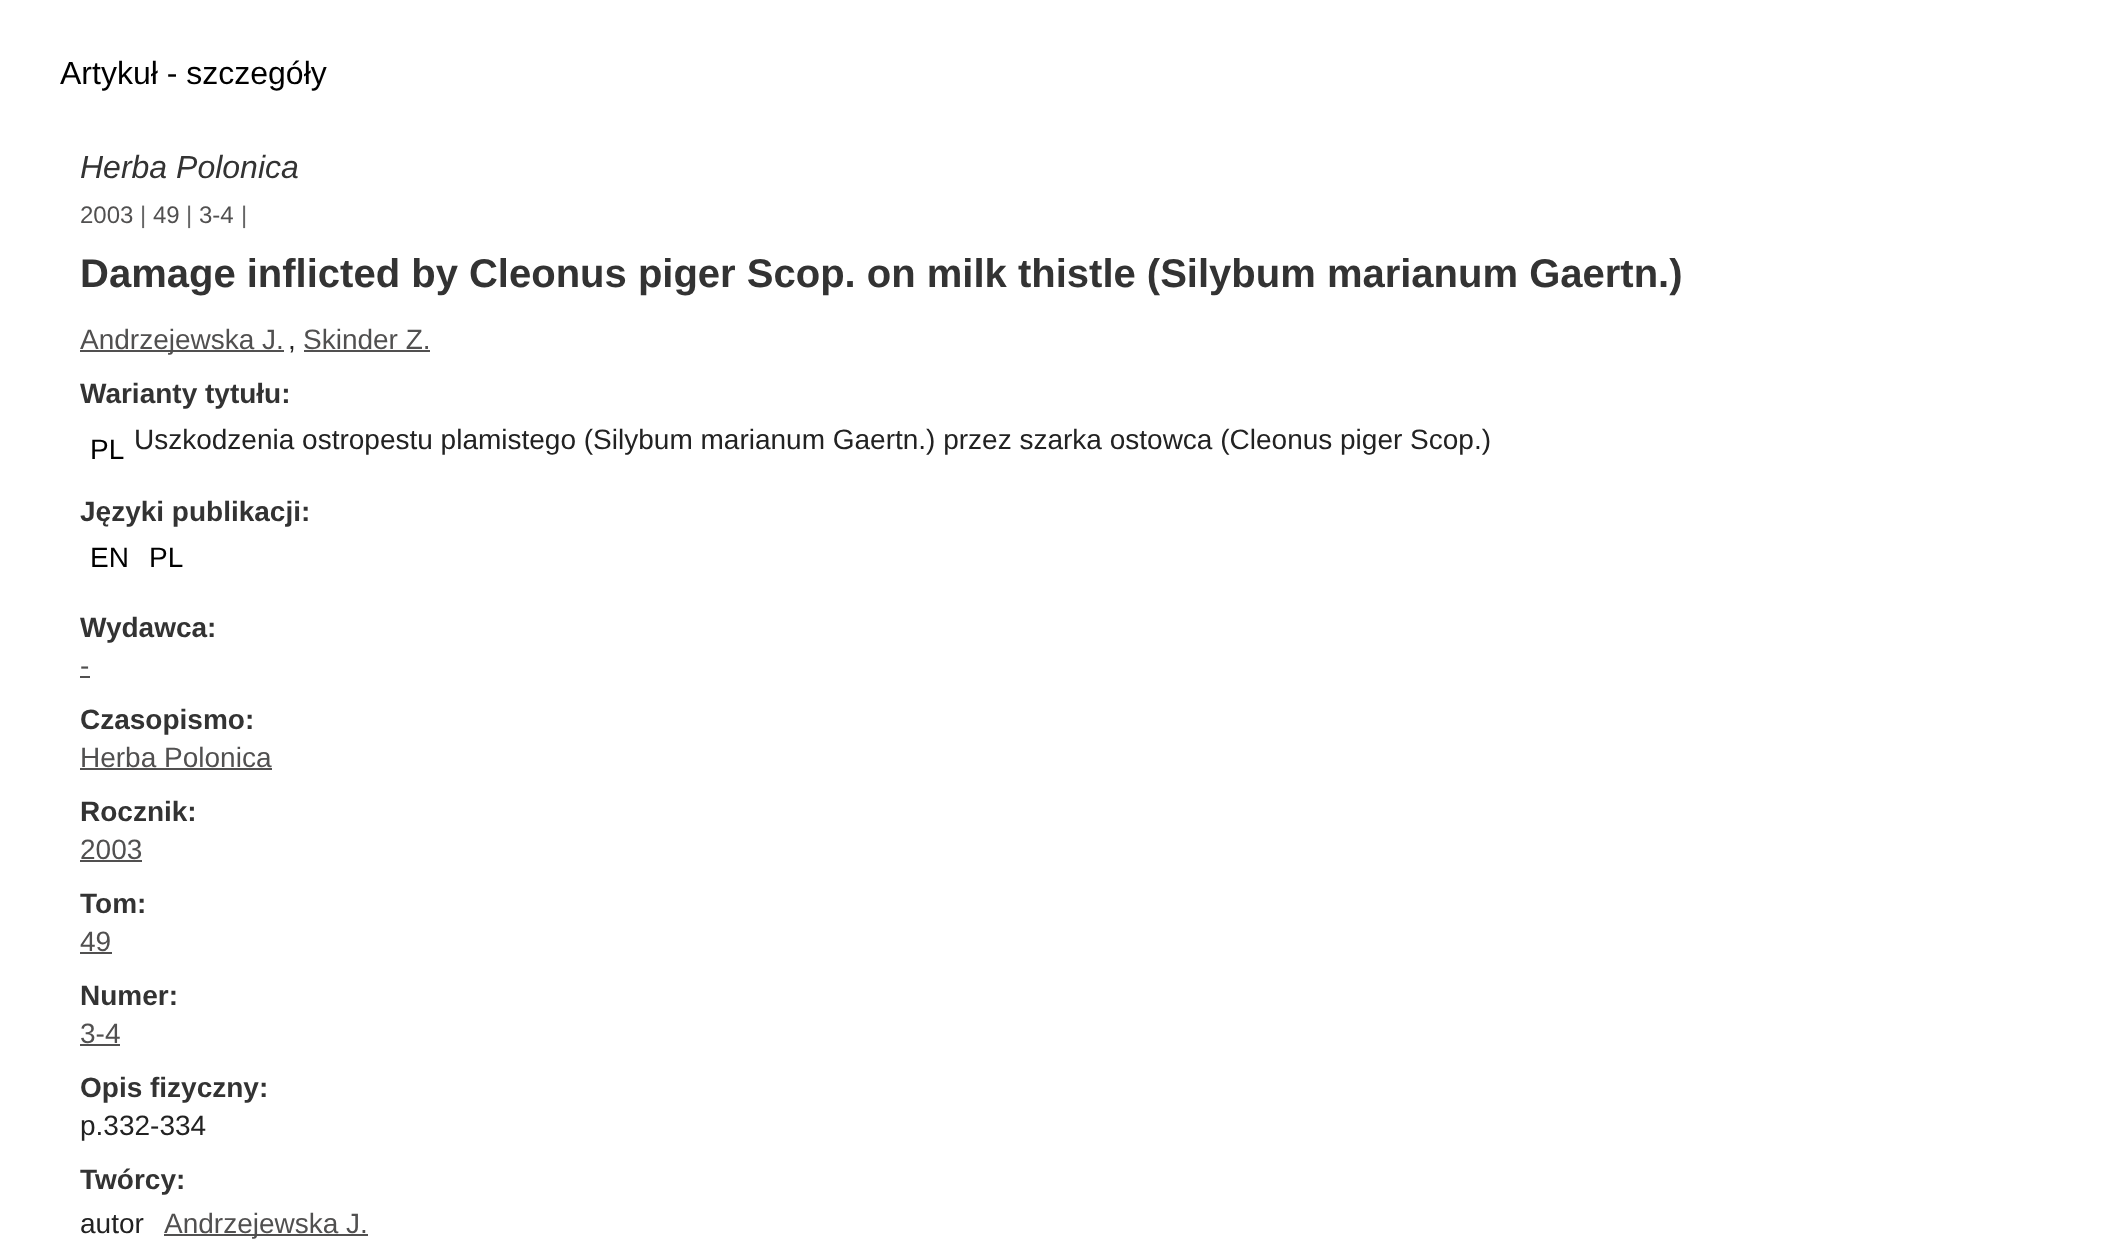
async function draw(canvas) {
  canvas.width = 2125
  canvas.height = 1251
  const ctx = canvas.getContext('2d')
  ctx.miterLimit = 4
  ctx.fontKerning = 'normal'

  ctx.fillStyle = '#fff'
  ctx.fillRect(0, 0, 2125, 1251)
  ctx.font = '32px Liberation Sans'
  ctx.fillStyle = '#000'
  ctx.fillText('Artykuł - szczegóły', 60, 84)
  ctx.font = 'italic 32px Liberation Sans'
  ctx.fillStyle = '#333'
  ctx.fillText('Herba Polonica', 80, 178)
  ctx.font = '24px Liberation Sans'
  ctx.fillStyle = '#515050'
  ctx.fillText('2003', 80, 223)
  ctx.fillStyle = '#666'
  ctx.fillText('|', 140, 223)
  ctx.fillStyle = '#515050'
  ctx.fillText('49', 153, 223)
  ctx.fillStyle = '#666'
  ctx.fillText('|', 186, 223)
  ctx.fillStyle = '#515050'
  ctx.fillText('3-4', 199, 223)
  ctx.fillStyle = '#666'
  ctx.fillText('|', 241, 223)
  ctx.font = 'bold 40px Liberation Sans'
  ctx.fillStyle = '#333'
  ctx.fillText('Damage inflicted by Cleonus piger Scop. on milk thistle (Silybum marianum Gaertn.)', 80, 287)
  ctx.fillStyle = '#515050'
  ctx.fillRect(80, 350, 204, 2)
  ctx.font = '28px Liberation Sans'
  ctx.fillText('Andrzejewska J.', 80, 349)
  ctx.fillStyle = '#222'
  ctx.fillText(',', 288, 349)
  ctx.fillStyle = '#515050'
  ctx.fillText('Skinder Z.', 303, 349)
  ctx.fillRect(304, 350, 126, 2)
  ctx.font = 'bold 28px Liberation Sans'
  ctx.fillStyle = '#333'
  ctx.fillText('Warianty tytułu:', 80, 403)
  ctx.font = '28px Liberation Sans'
  ctx.fillStyle = '#000'
  ctx.fillText('PL', 90, 459)
  ctx.fillStyle = '#222'
  ctx.fillText('Uszkodzenia ostropestu plamistego (Silybum marianum Gaertn.) przez szarka ostowca (Cleonus piger Scop.)', 134, 449)
  ctx.font = 'bold 28px Liberation Sans'
  ctx.fillStyle = '#333'
  ctx.fillText('Języki publikacji:', 80, 521)
  ctx.font = '28px Liberation Sans'
  ctx.fillStyle = '#000'
  ctx.fillText('EN', 90, 567)
  ctx.fillText('PL', 149, 567)
  ctx.font = 'bold 28px Liberation Sans'
  ctx.fillStyle = '#333'
  ctx.fillText('Wydawca:', 80, 637)
  ctx.font = '28px Liberation Sans'
  ctx.fillStyle = '#515050'
  ctx.fillText('-', 80, 675)
  ctx.fillRect(80, 676, 10, 2)
  ctx.font = 'bold 28px Liberation Sans'
  ctx.fillStyle = '#333'
  ctx.fillText('Czasopismo:', 80, 729)
  ctx.font = '28px Liberation Sans'
  ctx.fillStyle = '#515050'
  ctx.fillText('Herba Polonica', 80, 767)
  ctx.fillRect(80, 768, 192, 2)
  ctx.font = 'bold 28px Liberation Sans'
  ctx.fillStyle = '#333'
  ctx.fillText('Rocznik:', 80, 821)
  ctx.font = '28px Liberation Sans'
  ctx.fillStyle = '#515050'
  ctx.fillText('2003', 80, 859)
  ctx.fillRect(80, 860, 62, 2)
  ctx.font = 'bold 28px Liberation Sans'
  ctx.fillStyle = '#333'
  ctx.fillText('Tom:', 80, 913)
  ctx.font = '28px Liberation Sans'
  ctx.fillStyle = '#515050'
  ctx.fillText('49', 80, 951)
  ctx.fillRect(80, 952, 32, 2)
  ctx.font = 'bold 28px Liberation Sans'
  ctx.fillStyle = '#333'
  ctx.fillText('Numer:', 80, 1005)
  ctx.font = '28px Liberation Sans'
  ctx.fillStyle = '#515050'
  ctx.fillText('3-4', 80, 1043)
  ctx.fillRect(80, 1044, 40, 2)
  ctx.font = 'bold 28px Liberation Sans'
  ctx.fillStyle = '#333'
  ctx.fillText('Opis fizyczny:', 80, 1097)
  ctx.font = '28px Liberation Sans'
  ctx.fillStyle = '#222'
  ctx.fillText('p.332-334', 80, 1135)
  ctx.font = 'bold 28px Liberation Sans'
  ctx.fillStyle = '#333'
  ctx.fillText('Twórcy:', 80, 1189)
  ctx.font = '28px Liberation Sans'
  ctx.fillStyle = '#222'
  ctx.fillText('autor', 80, 1233)
  ctx.fillStyle = '#515050'
  ctx.fillRect(164, 1234, 204, 2)
  ctx.fillText('Andrzejewska J.', 164, 1233)
}

draw(document.querySelector('canvas'))
